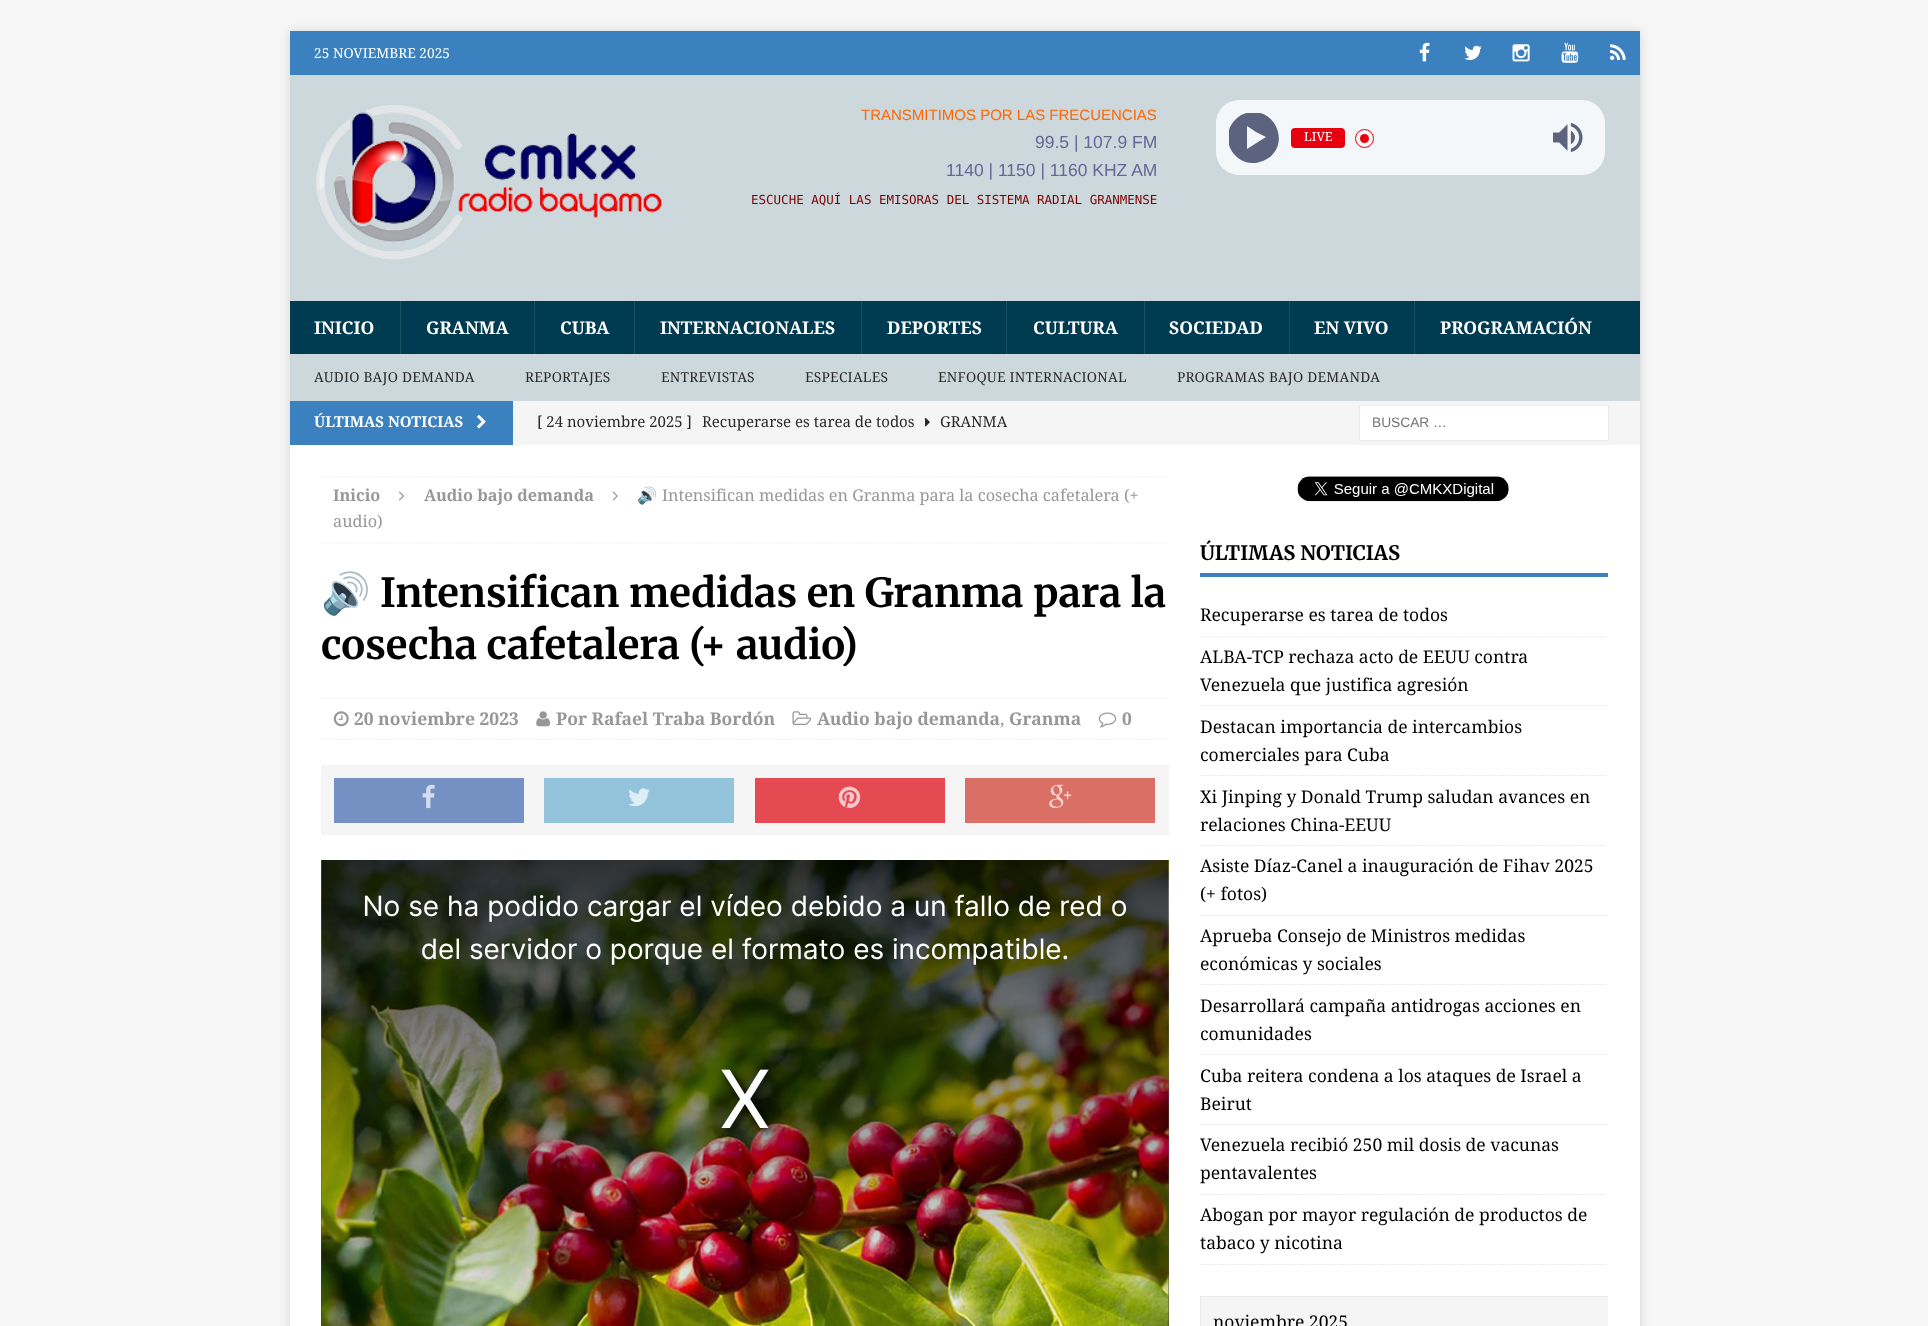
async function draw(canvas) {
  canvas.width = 1928
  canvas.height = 1326
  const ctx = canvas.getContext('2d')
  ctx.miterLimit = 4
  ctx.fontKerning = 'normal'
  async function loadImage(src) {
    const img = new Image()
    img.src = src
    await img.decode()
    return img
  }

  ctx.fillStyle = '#f7f7f7'
  ctx.fillRect(0, 0, 1928, 1326)
  ctx.fillStyle = '#3232322b'
  ctx.filter = 'blur(6px)'
  ctx.beginPath()
  ctx.rect(290, 31, 1350, 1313)
  ctx.fill()
  ctx.filter = 'none'
  ctx.fillStyle = '#3b81bf'
  ctx.fillRect(290, 31, 1350, 44)
  ctx.font = '13.75px Droid Serif'
  ctx.fillStyle = '#fff'
  ctx.fillText('25 NOVIEMBRE 2025', 314, 58)
  ctx.drawImage(await loadImage('image0.png'), 1419, 42, 11, 20)
  ctx.drawImage(await loadImage('image1.png'), 1464, 45, 18, 15)
  ctx.drawImage(await loadImage('image2.png'), 1512, 44, 18, 18)
  ctx.drawImage(await loadImage('image3.png'), 1561, 42, 18, 21)
  ctx.drawImage(await loadImage('image4.png'), 1610, 44, 16, 16)
  ctx.fillStyle = '#ccd8dc'
  ctx.fillRect(290, 75, 1350, 226)
  ctx.drawImage(await loadImage('image5.png'), 316, 105, 347, 155)
  ctx.font = '15px Liberation Sans'
  ctx.fillStyle = '#f60'
  ctx.fillText('TRANSMITIMOS POR LAS FRECUENCIAS', 861, 120)
  ctx.font = '17.5px Liberation Sans'
  ctx.fillStyle = '#669'
  ctx.fillText('99.5 | 107.9 FM', 1035, 148)
  ctx.fillText('1140 | 1150 | 1160 KHZ AM', 946, 176)
  ctx.font = '12.5px DejaVu Sans Mono'
  ctx.fillStyle = '#800000'
  ctx.fillText('ESCUCHE AQUÍ LAS EMISORAS DEL SISTEMA RADIAL GRANMENSE', 751, 204)
  ctx.fillStyle = '#f4f7f9'
  ctx.beginPath()
  ctx.roundRect(1216, 100, 389, 75, 23)
  ctx.fill()
  ctx.save()
  ctx.beginPath()
  ctx.rect(1229, 113, 51, 50)
  ctx.clip()
  ctx.fillStyle = '#5c637e'
  ctx.beginPath()
  ctx.moveTo(1251, 112)
  ctx.bezierCurveTo(1245, 113, 1240, 115, 1236, 119)
  ctx.bezierCurveTo(1218, 136, 1232, 165, 1256, 163)
  ctx.bezierCurveTo(1261, 162, 1266, 160, 1270, 157)
  ctx.bezierCurveTo(1289, 141, 1275, 110, 1251, 112)
  ctx.closePath()
  ctx.moveTo(1256, 132)
  ctx.lineTo(1266, 137)
  ctx.lineTo(1247, 149)
  ctx.lineTo(1247, 126)
  ctx.closePath()
  ctx.fill()
  ctx.restore()
  ctx.fillStyle = '#e8000e'
  ctx.beginPath()
  ctx.roundRect(1291, 128, 54, 20, 4)
  ctx.fill()
  ctx.font = '12.5px Droid Serif'
  ctx.fillStyle = '#fff'
  ctx.fillText('LIVE', 1304, 141)
  ctx.fillStyle = '#e8000e'
  ctx.beginPath()
  ctx.arc(1364.5, 138.5, 4.5, 0, 2 * Math.PI)
  ctx.fill()
  ctx.beginPath()
  ctx.arc(1364.5, 138.5, 9, 0, 2 * Math.PI)
  ctx.strokeStyle = '#e8000e'
  ctx.stroke()
  ctx.drawImage(await loadImage('image6.png'), 1553, 123, 30, 29)
  ctx.fillStyle = '#003c51'
  ctx.fillRect(290, 301, 1350, 53)
  ctx.font = 'bold 17.5px Droid Serif'
  ctx.fillStyle = '#fff'
  ctx.fillText('INICIO', 314, 334)
  ctx.fillStyle = '#1a5062'
  ctx.fillRect(400, 301, 1, 53)
  ctx.fillStyle = '#fff'
  ctx.fillText('GRANMA', 426, 334)
  ctx.fillStyle = '#1a5062'
  ctx.fillRect(534, 301, 1, 53)
  ctx.fillStyle = '#fff'
  ctx.fillText('CUBA', 560, 334)
  ctx.fillStyle = '#1a5062'
  ctx.fillRect(634, 301, 1, 53)
  ctx.fillStyle = '#fff'
  ctx.fillText('INTERNACIONALES', 660, 334)
  ctx.fillStyle = '#1a5062'
  ctx.fillRect(861, 301, 1, 53)
  ctx.fillStyle = '#fff'
  ctx.fillText('DEPORTES', 887, 334)
  ctx.fillStyle = '#1a5062'
  ctx.fillRect(1006, 301, 1, 53)
  ctx.fillStyle = '#fff'
  ctx.fillText('CULTURA', 1033, 334)
  ctx.fillStyle = '#1a5062'
  ctx.fillRect(1144, 301, 1, 53)
  ctx.fillStyle = '#fff'
  ctx.fillText('SOCIEDAD', 1169, 334)
  ctx.fillStyle = '#1a5062'
  ctx.fillRect(1289, 301, 1, 53)
  ctx.fillStyle = '#fff'
  ctx.fillText('EN VIVO', 1314, 334)
  ctx.fillStyle = '#1a5062'
  ctx.fillRect(1414, 301, 1, 53)
  ctx.fillStyle = '#fff'
  ctx.fillText('PROGRAMACIÓN', 1440, 334)
  ctx.fillStyle = '#ccd8dc'
  ctx.fillRect(290, 354, 1350, 47)
  ctx.letterSpacing = '0.25px'
  ctx.font = '13.75px Droid Serif'
  ctx.fillStyle = '#2a2a2a'
  ctx.fillText('AUDIO BAJO DEMANDA', 314, 382)
  ctx.fillText('REPORTAJES', 525, 382)
  ctx.fillText('ENTREVISTAS', 661, 382)
  ctx.fillText('ESPECIALES', 805, 382)
  ctx.fillText('ENFOQUE INTERNACIONAL', 938, 382)
  ctx.fillText('PROGRAMAS BAJO DEMANDA', 1177, 382)
  ctx.fillStyle = '#f5f5f5'
  ctx.fillRect(513, 401, 1127, 44)
  ctx.fillStyle = '#3b81bf'
  ctx.fillRect(290, 401, 223, 44)
  ctx.letterSpacing = '0px'
  ctx.font = 'bold 15px Droid Serif'
  ctx.fillStyle = '#fff'
  ctx.fillText('ÚLTIMAS NOTICIAS', 314, 427)
  ctx.drawImage(await loadImage('image7.png'), 477, 414, 9, 15)
  ctx.font = '15px Droid Serif'
  ctx.fillStyle = '#2a2a2a'
  ctx.fillText('[ 24 noviembre 2025 ]', 537, 427)
  ctx.fillText('Recuperarse es tarea de todos', 702, 427)
  ctx.drawImage(await loadImage('image8.png'), 925, 417, 5, 10)
  ctx.fillText('GRANMA', 940, 427)
  ctx.fillStyle = '#fff'
  ctx.beginPath()
  ctx.rect(1359.5, 405.5, 249, 35)
  ctx.fill()
  ctx.strokeStyle = '#ebebeb'
  ctx.stroke()
  ctx.font = '13.75px Liberation Sans'
  ctx.fillStyle = '#757575'
  ctx.fillText('BUSCAR …', 1372, 427)
  ctx.fillStyle = '#fff'
  ctx.fillRect(290, 445, 1350, 881)
  ctx.beginPath()
  ctx.moveTo(321, 477)
  ctx.lineTo(1169, 477)
  ctx.lineWidth = 1.2
  ctx.setLineDash([1.25, 1.25])
  ctx.stroke()
  ctx.beginPath()
  ctx.moveTo(321, 543)
  ctx.lineTo(1169, 543)
  ctx.stroke()
  ctx.font = 'bold 16.25px Droid Serif'
  ctx.fillStyle = '#979797'
  ctx.fillText('Inicio', 333, 501)
  ctx.drawImage(await loadImage('image9.png'), 398, 491, 6, 10)
  ctx.fillText('Audio bajo demanda', 424, 501)
  ctx.drawImage(await loadImage('image10.png'), 612, 491, 6, 10)
  ctx.font = '16.25px Noto Color Emoji'
  ctx.fillText('🔊', 637, 501)
  ctx.font = '16.25px Droid Serif'
  ctx.fillText('Intensifican medidas en Granma para la cosecha cafetalera (+', 662, 501)
  ctx.fillText('audio)', 333, 527)
  ctx.save()
  ctx.beginPath()
  ctx.rect(321, 476, 848, 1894)
  ctx.clip()
  ctx.font = 'bold 40px Noto Color Emoji'
  ctx.fillStyle = '#000'
  ctx.fillText('🔊', 321, 607)
  ctx.restore()
  ctx.font = 'bold 40px Merriweather'
  ctx.fillStyle = '#000'
  ctx.fillText('Intensifican medidas en Granma para la', 380, 607)
  ctx.fillText('cosecha cafetalera (+ audio)', 321, 659)
  ctx.beginPath()
  ctx.moveTo(321, 698)
  ctx.lineTo(1169, 698)
  ctx.stroke()
  ctx.beginPath()
  ctx.moveTo(321, 739.5)
  ctx.lineTo(1169, 739.5)
  ctx.stroke()
  ctx.drawImage(await loadImage('image11.png'), 333, 711, 16, 16)
  ctx.font = 'bold 17.5px Droid Serif'
  ctx.fillStyle = '#979797'
  ctx.fillText('20 noviembre 2023', 354, 725)
  ctx.drawImage(await loadImage('image12.png'), 536, 711, 14, 16)
  ctx.fillText('Por Rafael Traba Bordón', 556, 725)
  ctx.drawImage(await loadImage('image13.png'), 792, 711, 20, 14)
  ctx.fillText('Audio bajo demanda', 817, 725)
  ctx.font = '17.5px Droid Serif'
  ctx.fillText(',', 1000, 725)
  ctx.font = 'bold 17.5px Droid Serif'
  ctx.fillText('Granma', 1009, 725)
  ctx.drawImage(await loadImage('image14.png'), 1098, 712, 19, 16)
  ctx.fillText('0', 1122, 725)
  ctx.fillStyle = '#f5f5f5'
  ctx.fillRect(321, 765, 848, 70)
  ctx.fillStyle = '#7590c3'
  ctx.fillRect(334, 778, 190, 45)
  ctx.drawImage(await loadImage('image15.png'), 422, 784, 13, 25)
  ctx.fillStyle = '#94c3dc'
  ctx.fillRect(544, 778, 190, 45)
  ctx.drawImage(await loadImage('image16.png'), 628, 788, 22, 19)
  ctx.fillStyle = '#e54a53'
  ctx.fillRect(755, 778, 190, 45)
  ctx.drawImage(await loadImage('image17.png'), 838, 786, 23, 22)
  ctx.fillStyle = '#d96f65'
  ctx.fillRect(965, 778, 190, 45)
  ctx.drawImage(await loadImage('image18.png'), 1049, 784, 23, 24)
  ctx.drawImage(await loadImage('image19.png'), 321, 860, 848, 466)
  ctx.drawImage(await loadImage('image20.png'), 1297, 476, 212, 26)
  ctx.fillStyle = '#3b81bf'
  ctx.fillRect(1200, 573, 408, 4)
  ctx.font = 'bold 20px Merriweather'
  ctx.fillStyle = '#000'
  ctx.fillText('ÚLTIMAS NOTICIAS', 1200, 560)
  ctx.beginPath()
  ctx.moveTo(1200, 637)
  ctx.lineTo(1607.5, 637)
  ctx.strokeStyle = '#e5e5e5'
  ctx.stroke()
  ctx.font = '17.5px Droid Serif'
  ctx.fillText('Recuperarse es tarea de todos', 1200, 621)
  ctx.beginPath()
  ctx.moveTo(1200, 705.5)
  ctx.lineTo(1607.5, 705.5)
  ctx.stroke()
  ctx.fillText('ALBA-TCP rechaza acto de EEUU contra', 1200, 663)
  ctx.fillText('Venezuela que justifica agresión', 1200, 691)
  ctx.beginPath()
  ctx.moveTo(1200, 775.5)
  ctx.lineTo(1607.5, 775.5)
  ctx.stroke()
  ctx.fillText('Destacan importancia de intercambios', 1200, 733)
  ctx.fillText('comerciales para Cuba', 1200, 761)
  ctx.beginPath()
  ctx.moveTo(1200, 845.5)
  ctx.lineTo(1607.5, 845.5)
  ctx.stroke()
  ctx.fillText('Xi Jinping y Donald Trump saludan avances en', 1200, 803)
  ctx.fillText('relaciones China-EEUU', 1200, 831)
  ctx.beginPath()
  ctx.moveTo(1200, 915.5)
  ctx.lineTo(1607.5, 915.5)
  ctx.stroke()
  ctx.fillText('Asiste Díaz-Canel a inauguración de Fihav 2025', 1200, 872)
  ctx.fillText('(+ fotos)', 1200, 900)
  ctx.beginPath()
  ctx.moveTo(1200, 984.5)
  ctx.lineTo(1607.5, 984.5)
  ctx.stroke()
  ctx.fillText('Aprueba Consejo de Ministros medidas', 1200, 942)
  ctx.fillText('económicas y sociales', 1200, 970)
  ctx.beginPath()
  ctx.moveTo(1200, 1054.5)
  ctx.lineTo(1607.5, 1054.5)
  ctx.stroke()
  ctx.fillText('Desarrollará campaña antidrogas acciones en', 1200, 1012)
  ctx.fillText('comunidades', 1200, 1040)
  ctx.beginPath()
  ctx.moveTo(1200, 1124.5)
  ctx.lineTo(1607.5, 1124.5)
  ctx.stroke()
  ctx.fillText('Cuba reitera condena a los ataques de Israel a', 1200, 1082)
  ctx.fillText('Beirut', 1200, 1110)
  ctx.beginPath()
  ctx.moveTo(1200, 1194.5)
  ctx.lineTo(1607.5, 1194.5)
  ctx.stroke()
  ctx.fillText('Venezuela recibió 250 mil dosis de vacunas', 1200, 1151)
  ctx.fillText('pentavalentes', 1200, 1179)
  ctx.save()
  ctx.beginPath()
  ctx.rect(1200, 540, 408, 725)
  ctx.clip()
  ctx.beginPath()
  ctx.moveTo(1200, 1264.5)
  ctx.lineTo(1607.5, 1264.5)
  ctx.stroke()
  ctx.restore()
  ctx.fillText('Abogan por mayor regulación de productos de', 1200, 1221)
  ctx.fillText('tabaco y nicotina', 1200, 1249)
  ctx.fillStyle = '#ebebeb'
  ctx.fillRect(1200, 1296, 408, 1)
  ctx.fillRect(1200, 1296, 1, 30)
  ctx.fillStyle = '#f5f5f5'
  ctx.fillRect(1201, 1297, 407, 29)
  ctx.fillStyle = '#000'
  ctx.fillText('noviembre 2025', 1213, 1328)
}

draw(document.querySelector('canvas'))
